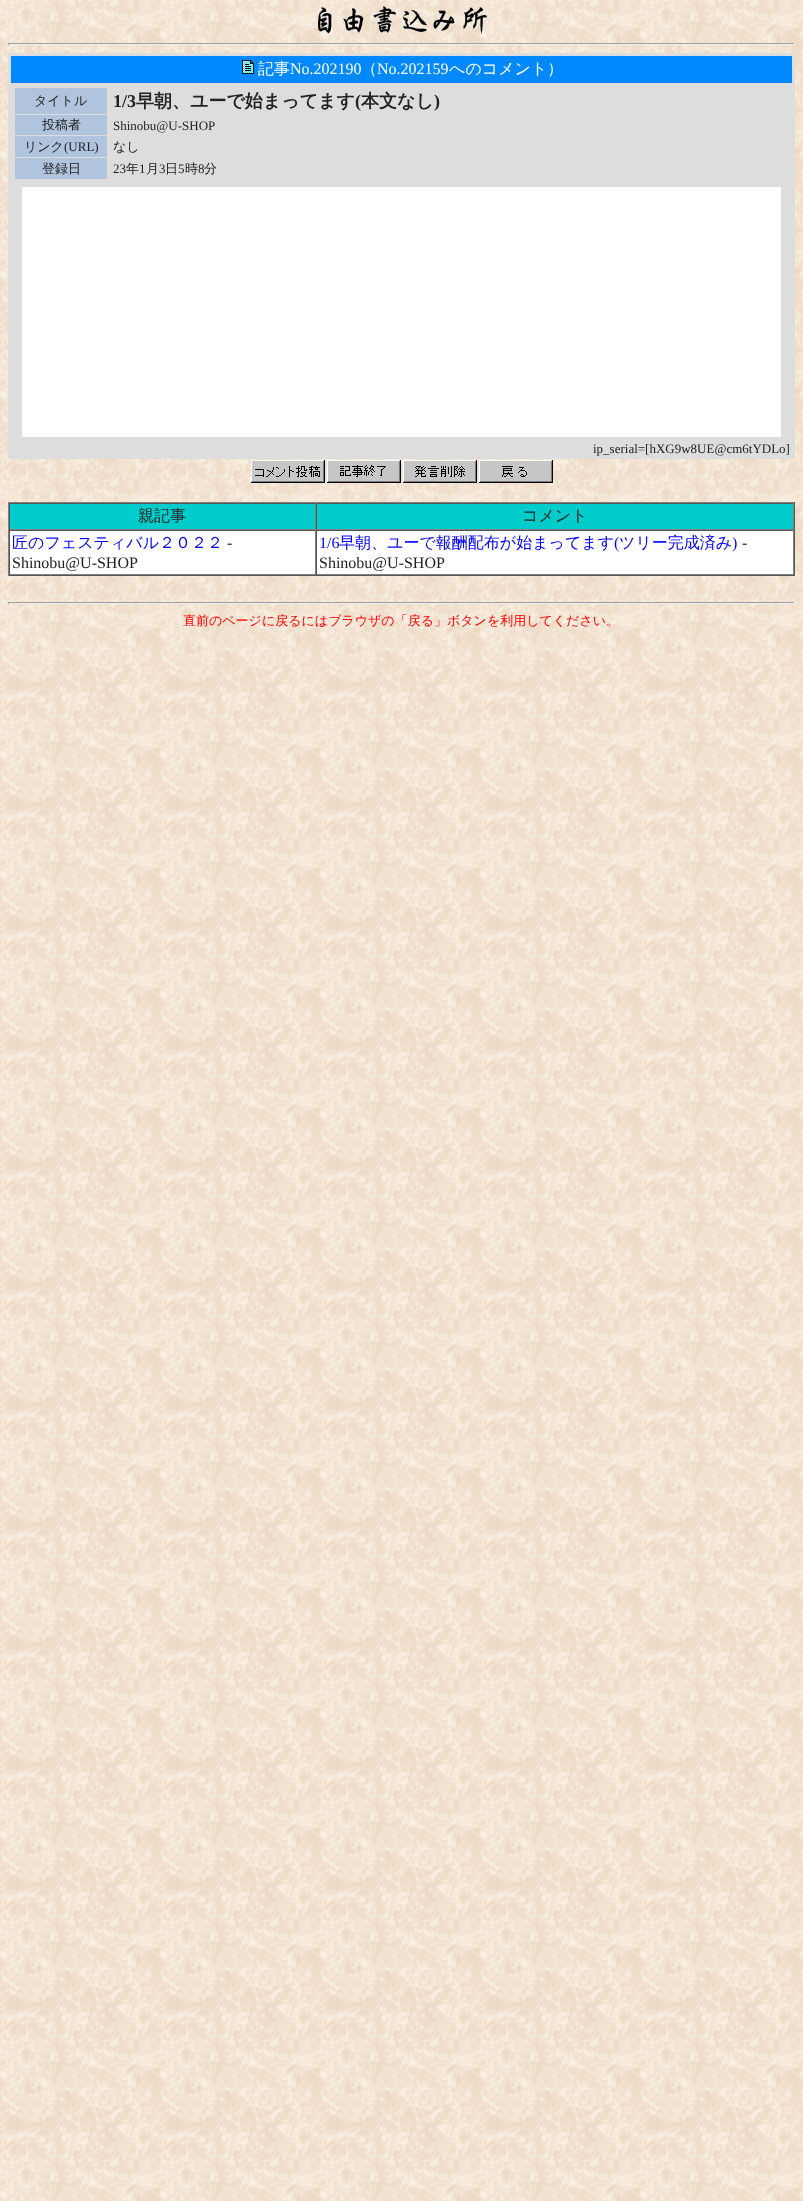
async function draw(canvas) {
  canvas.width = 803
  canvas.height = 2201
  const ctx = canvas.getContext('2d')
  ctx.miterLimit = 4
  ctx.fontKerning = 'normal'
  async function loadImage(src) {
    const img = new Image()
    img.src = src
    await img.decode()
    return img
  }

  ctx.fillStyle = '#fff'
  ctx.fillRect(0, 0, 803, 2201)
  ctx.drawImage(await loadImage('image0.png'), 0, 0, 803, 2201)
  ctx.drawImage(await loadImage('image1.png'), 318, 6, 169, 28)
  ctx.fillStyle = '#9f9f9f'
  ctx.fillRect(8, 43, 787, 1)
  ctx.fillStyle = '#eee'
  ctx.fillRect(794, 43, 1, 2)
  ctx.fillRect(8, 44, 787, 1)
  ctx.fillStyle = '#9f9f9f'
  ctx.fillRect(8, 43, 1, 2)
  ctx.fillStyle = '#ddd'
  ctx.fillRect(8, 53, 787, 406)
  ctx.fillStyle = '#08f'
  ctx.fillRect(11, 56, 781, 27)
  ctx.drawImage(await loadImage('image2.png'), 242, 60, 12, 14)
  ctx.font = '500 16px WenQuanYi Zen Hei'
  ctx.fillStyle = '#fff'
  ctx.fillText('記事', 258, 74)
  ctx.font = '16px Liberation Serif'
  ctx.fillText('No.202190', 290, 74)
  ctx.font = '500 16px WenQuanYi Zen Hei'
  ctx.fillText('（', 361, 74)
  ctx.font = '16px Liberation Serif'
  ctx.fillText('No.202159', 377, 74)
  ctx.font = '500 16px WenQuanYi Zen Hei'
  ctx.fillText('へのコメント）', 449, 74)
  ctx.fillStyle = '#b0c4de'
  ctx.fillRect(15, 88, 92, 26)
  ctx.font = '500 13px WenQuanYi Zen Hei'
  ctx.fillStyle = '#222'
  ctx.fillText('タイトル', 34, 105)
  ctx.font = 'bold 18px Liberation Serif'
  ctx.fillText('1/3', 113, 107)
  ctx.font = 'bold 18px WenQuanYi Zen Hei'
  ctx.fillText('早朝、ユーで始まってます', 136, 107)
  ctx.font = 'bold 18px Liberation Serif'
  ctx.fillText('(', 355, 107)
  ctx.font = 'bold 18px WenQuanYi Zen Hei'
  ctx.fillText('本文なし', 361, 107)
  ctx.font = 'bold 18px Liberation Serif'
  ctx.fillText(')', 434, 107)
  ctx.fillStyle = '#b0c4de'
  ctx.fillRect(15, 115, 92, 20)
  ctx.font = '500 13px WenQuanYi Zen Hei'
  ctx.fillStyle = '#222'
  ctx.fillText('投稿者', 42, 129)
  ctx.font = '13px Liberation Serif'
  ctx.fillText('Shinobu@U-SHOP', 113, 130)
  ctx.fillStyle = '#b0c4de'
  ctx.fillRect(15, 136, 92, 21)
  ctx.font = '500 13px WenQuanYi Zen Hei'
  ctx.fillStyle = '#222'
  ctx.fillText('リンク', 24, 151)
  ctx.font = '13px Liberation Serif'
  ctx.fillText('(URL)', 64, 151)
  ctx.font = '500 13px WenQuanYi Zen Hei'
  ctx.fillText('なし', 113, 151)
  ctx.fillStyle = '#b0c4de'
  ctx.fillRect(15, 158, 92, 21)
  ctx.fillStyle = '#222'
  ctx.fillText('登録日', 42, 173)
  ctx.font = '13px Liberation Serif'
  ctx.fillText('23', 113, 173)
  ctx.font = '500 13px WenQuanYi Zen Hei'
  ctx.fillText('年', 126, 173)
  ctx.font = '13px Liberation Serif'
  ctx.fillText('1', 139, 173)
  ctx.font = '500 13px WenQuanYi Zen Hei'
  ctx.fillText('月', 146, 173)
  ctx.font = '13px Liberation Serif'
  ctx.fillText('3', 159, 173)
  ctx.font = '500 13px WenQuanYi Zen Hei'
  ctx.fillText('日', 165, 173)
  ctx.font = '13px Liberation Serif'
  ctx.fillText('5', 178, 173)
  ctx.font = '500 13px WenQuanYi Zen Hei'
  ctx.fillText('時', 185, 173)
  ctx.font = '13px Liberation Serif'
  ctx.fillText('8', 198, 173)
  ctx.font = '500 13px WenQuanYi Zen Hei'
  ctx.fillText('分', 204, 173)
  ctx.fillStyle = '#fff'
  ctx.fillRect(22, 187, 759, 250)
  ctx.font = '13px Liberation Serif'
  ctx.fillStyle = '#222'
  ctx.fillText('ip_serial=[hXG9w8UE@cm6tYDLo]', 593, 453)
  ctx.drawImage(await loadImage('image3.png'), 251, 460, 74, 23)
  ctx.drawImage(await loadImage('image4.png'), 327, 460, 74, 23)
  ctx.drawImage(await loadImage('image5.png'), 403, 460, 74, 23)
  ctx.drawImage(await loadImage('image6.png'), 479, 460, 74, 23)
  ctx.fillStyle = '#808080'
  ctx.fillRect(8, 502, 787, 1)
  ctx.fillStyle = '#555'
  ctx.fillRect(794, 502, 1, 74)
  ctx.fillRect(8, 575, 787, 1)
  ctx.fillStyle = '#808080'
  ctx.fillRect(8, 502, 1, 74)
  ctx.fillStyle = '#0cc'
  ctx.fillRect(10, 504, 783, 25)
  ctx.fillStyle = '#555'
  ctx.fillRect(9, 503, 785, 1)
  ctx.fillStyle = '#808080'
  ctx.fillRect(315, 503, 1, 27)
  ctx.fillRect(9, 529, 307, 1)
  ctx.fillStyle = '#555'
  ctx.fillRect(9, 503, 1, 27)
  ctx.font = '500 16px WenQuanYi Zen Hei'
  ctx.fillStyle = '#222'
  ctx.fillText('親記事', 138, 521)
  ctx.fillStyle = '#808080'
  ctx.fillRect(793, 503, 1, 27)
  ctx.fillRect(316, 529, 478, 1)
  ctx.fillStyle = '#555'
  ctx.fillRect(316, 503, 1, 27)
  ctx.fillStyle = '#222'
  ctx.fillText('コメント', 522, 521)
  ctx.fillStyle = '#fff'
  ctx.fillRect(10, 531, 783, 43)
  ctx.fillStyle = '#555'
  ctx.fillRect(9, 530, 785, 1)
  ctx.fillStyle = '#808080'
  ctx.fillRect(315, 530, 1, 45)
  ctx.fillRect(9, 574, 307, 1)
  ctx.fillStyle = '#555'
  ctx.fillRect(9, 530, 1, 45)
  ctx.fillStyle = '#00f'
  ctx.fillText('匠のフェスティバル２０２２', 12, 548)
  ctx.font = '16px Liberation Serif'
  ctx.fillStyle = '#222'
  ctx.fillText('-', 227, 548)
  ctx.fillText('Shinobu@U-SHOP', 12, 568)
  ctx.fillStyle = '#808080'
  ctx.fillRect(793, 530, 1, 45)
  ctx.fillRect(316, 574, 478, 1)
  ctx.fillStyle = '#555'
  ctx.fillRect(316, 530, 1, 45)
  ctx.fillStyle = '#00f'
  ctx.fillText('1/6', 319, 548)
  ctx.font = '500 16px WenQuanYi Zen Hei'
  ctx.fillText('早朝、ユーで報酬配布が始まってます', 339, 548)
  ctx.font = '16px Liberation Serif'
  ctx.fillText('(', 614, 548)
  ctx.font = '500 16px WenQuanYi Zen Hei'
  ctx.fillText('ツリー完成済み', 619, 548)
  ctx.font = '16px Liberation Serif'
  ctx.fillText(')', 732, 548)
  ctx.fillStyle = '#222'
  ctx.fillText('-', 742, 548)
  ctx.fillText('Shinobu@U-SHOP', 319, 568)
  ctx.fillStyle = '#9f9f9f'
  ctx.fillRect(8, 602, 787, 1)
  ctx.fillStyle = '#eee'
  ctx.fillRect(794, 602, 1, 2)
  ctx.fillRect(8, 603, 787, 1)
  ctx.fillStyle = '#9f9f9f'
  ctx.fillRect(8, 602, 1, 2)
  ctx.font = '500 13px WenQuanYi Zen Hei'
  ctx.fillStyle = '#f00'
  ctx.fillText('直前のページに戻るにはブラウザの「戻る」ボタンを利用してください。', 183, 625)
}

draw(document.querySelector('canvas'))
